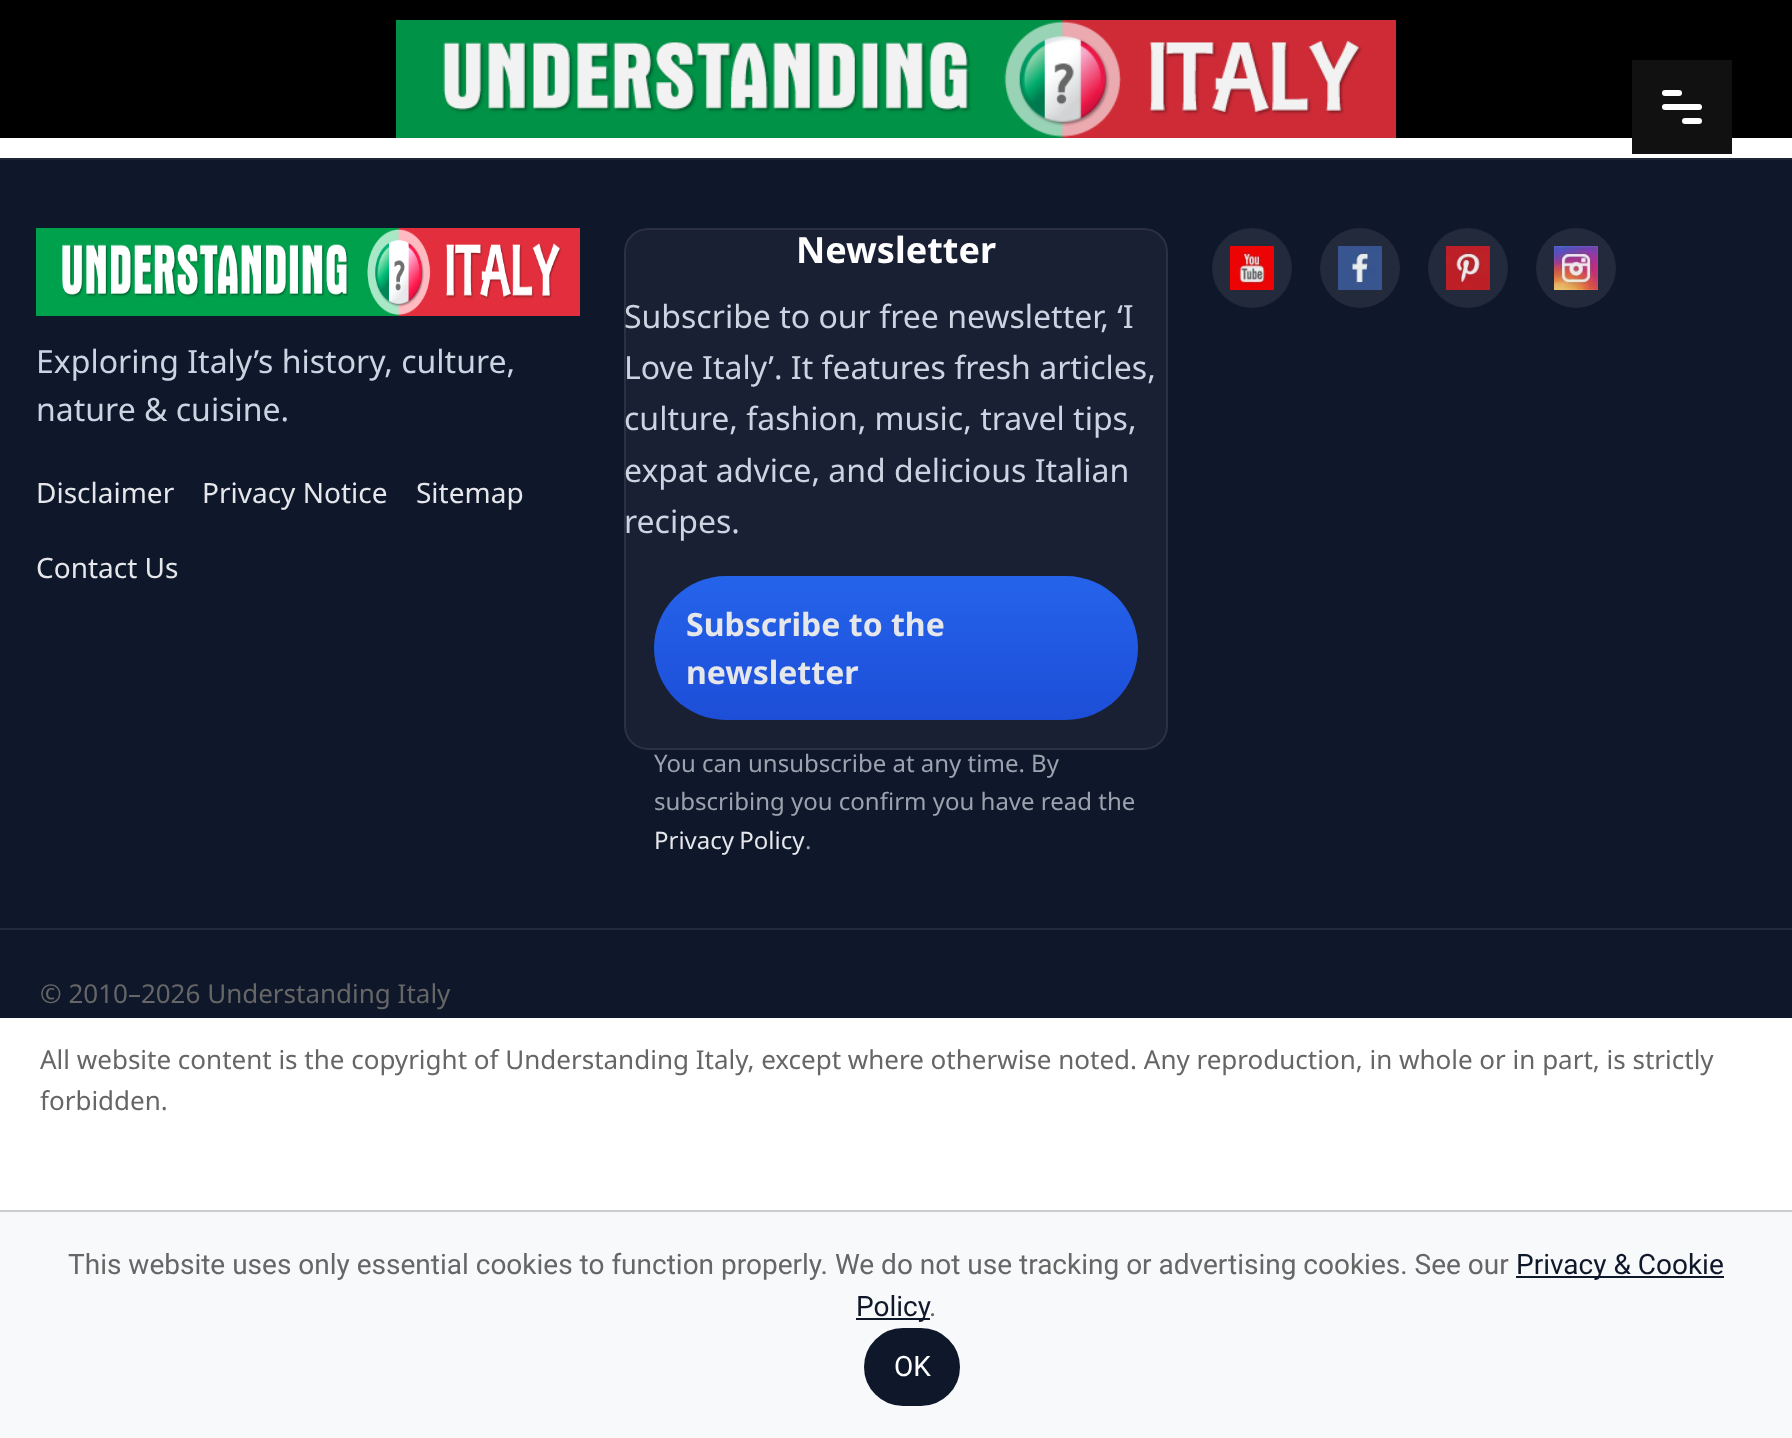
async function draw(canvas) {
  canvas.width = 1792
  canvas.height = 1438
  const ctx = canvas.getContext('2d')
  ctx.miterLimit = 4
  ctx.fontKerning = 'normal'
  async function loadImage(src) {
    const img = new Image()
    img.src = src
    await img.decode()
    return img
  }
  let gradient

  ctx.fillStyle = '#fff'
  ctx.fillRect(0, 0, 1792, 1438)
  ctx.fillStyle = '#000'
  ctx.fillRect(0, 0, 1792, 138)
  ctx.drawImage(await loadImage('image0.png'), 396, 20, 1000, 118)
  ctx.fillStyle = '#111'
  ctx.fillRect(1632, 60, 100, 94)
  ctx.fillStyle = '#fff'
  ctx.beginPath()
  ctx.roundRect(1662, 90, 20, 6, 3)
  ctx.fill()
  ctx.beginPath()
  ctx.roundRect(1662, 104, 40, 6, 3)
  ctx.fill()
  ctx.beginPath()
  ctx.roundRect(1682, 118, 20, 6, 3)
  ctx.fill()
  ctx.fillStyle = '#0f172a'
  ctx.fillRect(0, 160, 1792, 858)
  ctx.fillStyle = '#1d2537'
  ctx.fillRect(0, 158, 1792, 2)
  ctx.drawImage(await loadImage('image1.png'), 36, 228, 544, 88)
  ctx.font = '32px Noto Sans'
  ctx.fillStyle = '#cbd5e1'
  ctx.fillText('Exploring Italy’s history, culture,', 36, 373)
  ctx.fillText('nature & cuisine.', 36, 421)
  ctx.font = '28px Noto Sans'
  ctx.fillStyle = '#e5e7eb'
  ctx.fillText('Disclaimer', 36, 503)
  ctx.fillText('Privacy Notice', 202, 503)
  ctx.fillText('Sitemap', 416, 503)
  ctx.fillText('Contact Us', 36, 578)
  ctx.fillStyle = '#192033'
  ctx.beginPath()
  ctx.roundRect(624, 228, 544, 522, 24)
  ctx.fill()
  ctx.beginPath()
  ctx.roundRect(625, 229, 542, 520, 23)
  ctx.strokeStyle = '#ffffff14'
  ctx.lineWidth = 2
  ctx.stroke()
  ctx.font = 'bold 36px Noto Sans'
  ctx.fillStyle = '#fff'
  ctx.fillText('Newsletter', 796, 263)
  ctx.font = '32px Noto Sans'
  ctx.fillStyle = '#cbd5e1'
  ctx.fillText('Subscribe to our free newsletter, ‘I', 624, 328)
  ctx.fillText('Love Italy’. It features fresh articles,', 624, 379)
  ctx.fillText('culture, fashion, music, travel tips,', 624, 430)
  ctx.fillText('expat advice, and delicious Italian', 624, 482)
  ctx.fillText('recipes.', 624, 533)
  gradient = ctx.createLinearGradient(896, 576, 896, 720)
  gradient.addColorStop(0, '#2563eb')
  gradient.addColorStop(1, '#1d4ed8')
  ctx.fillStyle = gradient
  ctx.beginPath()
  ctx.roundRect(654, 576, 484, 144, 72)
  ctx.fill()
  ctx.font = 'bold 32px Noto Sans'
  ctx.fillStyle = '#e5e7eb'
  ctx.fillText('Subscribe to the', 686, 636)
  ctx.fillText('newsletter', 686, 684)
  ctx.font = '24px Noto Sans'
  ctx.fillStyle = '#9ca3af'
  ctx.fillText('You can unsubscribe at any time. By', 654, 772)
  ctx.fillText('subscribing you confirm you have read the', 654, 810)
  ctx.wordSpacing = '-1px'
  ctx.fillStyle = '#e5e7eb'
  ctx.fillText('Privacy Policy', 654, 849)
  ctx.wordSpacing = '0px'
  ctx.fillStyle = '#9ca3af'
  ctx.fillText('.', 805, 849)
  ctx.fillStyle = '#222a3b'
  ctx.beginPath()
  ctx.arc(1252, 268, 40, 0, 2 * Math.PI)
  ctx.fill()
  ctx.drawImage(await loadImage('image2.png'), 1230, 246, 44, 44)
  ctx.beginPath()
  ctx.arc(1360, 268, 40, 0, 2 * Math.PI)
  ctx.fill()
  ctx.drawImage(await loadImage('image3.png'), 1338, 246, 44, 44)
  ctx.beginPath()
  ctx.arc(1468, 268, 40, 0, 2 * Math.PI)
  ctx.fill()
  ctx.drawImage(await loadImage('image4.png'), 1446, 246, 44, 44)
  ctx.beginPath()
  ctx.arc(1576, 268, 40, 0, 2 * Math.PI)
  ctx.fill()
  ctx.drawImage(await loadImage('image5.png'), 1554, 246, 44, 44)
  ctx.fillRect(0, 928, 1792, 2)
  ctx.font = '26px Noto Sans'
  ctx.fillStyle = '#666'
  ctx.fillText('© 2010–2026 Understanding Italy', 40, 1003)
  ctx.fillText('All website content is the copyright of Understanding Italy, except where otherwise noted. Any reproduction, in whole or in part, is strictly', 40, 1069)
  ctx.fillText('forbidden.', 40, 1110)
  ctx.fillStyle = '#f8f9fa'
  ctx.fillRect(0, 1212, 1792, 226)
  ctx.fillStyle = '#ccc'
  ctx.fillRect(0, 1210, 1792, 2)
  ctx.font = '28px Roboto'
  ctx.fillStyle = '#666'
  ctx.fillText('This website uses only essential cookies to function properly. We do not use tracking or advertising cookies. See our', 68, 1274)
  ctx.fillStyle = '#0f172a'
  ctx.fillRect(1516, 1276, 208, 2)
  ctx.fillText('Privacy & Cookie', 1516, 1274)
  ctx.fillRect(856, 1318, 74, 2)
  ctx.fillText('Policy', 856, 1316)
  ctx.fillStyle = '#666'
  ctx.fillText('.', 929, 1316)
  ctx.fillStyle = '#0f172a'
  ctx.beginPath()
  ctx.roundRect(865, 1329, 94, 76, 38)
  ctx.fill()
  ctx.strokeStyle = '#0f172a'
  ctx.stroke()
  ctx.fillStyle = '#fff'
  ctx.fillText('OK', 894, 1376)
}

draw(document.querySelector('canvas'))
